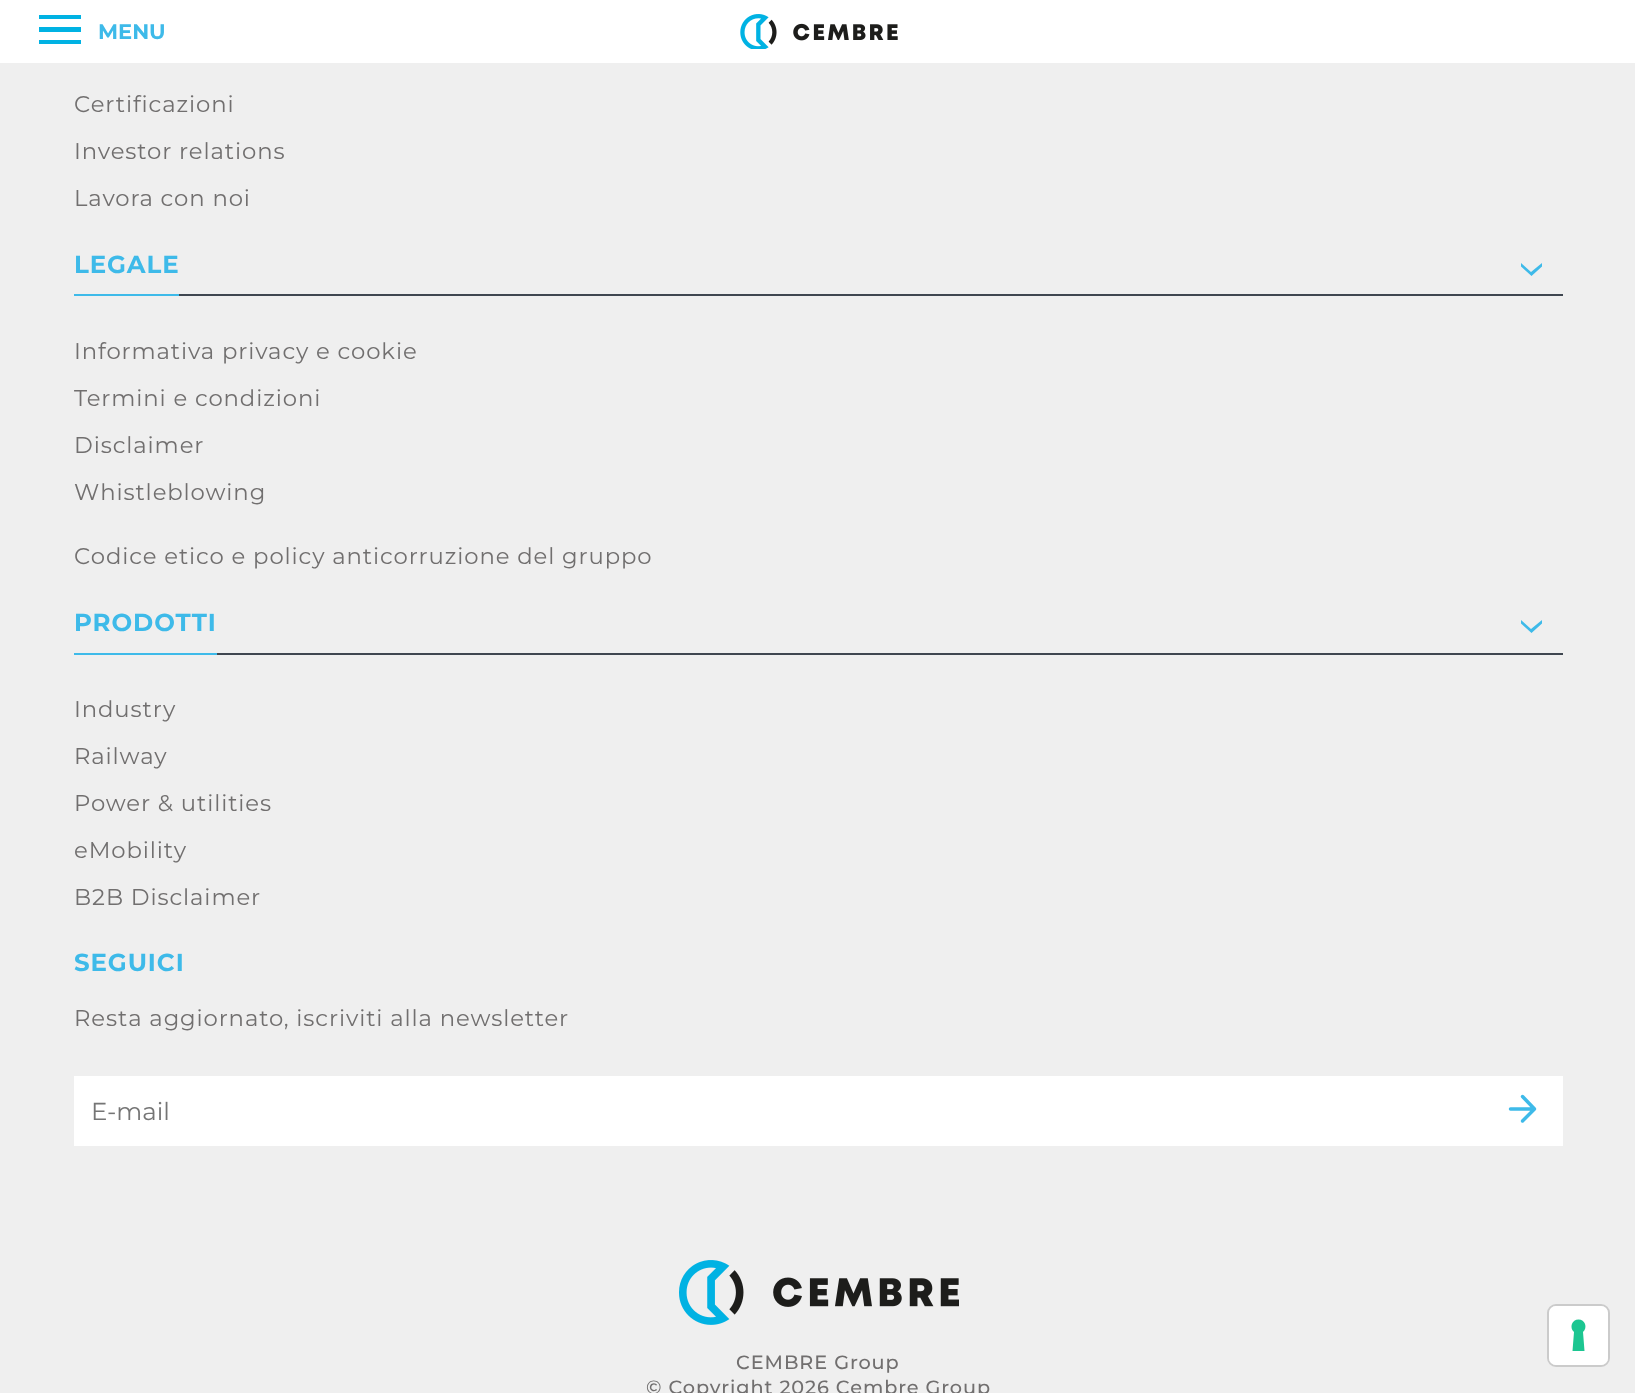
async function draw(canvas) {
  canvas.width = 1635
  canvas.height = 1393
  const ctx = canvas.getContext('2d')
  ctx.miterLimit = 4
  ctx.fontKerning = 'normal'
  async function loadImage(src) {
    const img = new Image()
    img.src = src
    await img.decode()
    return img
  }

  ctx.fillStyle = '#efefef'
  ctx.fillRect(0, 0, 1635, 1393)
  ctx.fillStyle = '#fff'
  ctx.fillRect(0, 0, 1635, 63)
  ctx.fillStyle = '#00b2e3'
  ctx.fillRect(39, 15, 42, 4)
  ctx.fillRect(39, 27, 42, 5)
  ctx.fillRect(39, 40, 42, 4)
  ctx.font = 'bold 21px Montserrat'
  ctx.fillStyle = '#3ebae9'
  ctx.fillText('MENU', 98, 39)
  ctx.drawImage(await loadImage('image0.png'), 740, 14, 158, 35)
  ctx.letterSpacing = '0.9px'
  ctx.font = '22.75px Montserrat'
  ctx.fillStyle = '#716f6f'
  ctx.fillText('Certificazioni', 74, 112)
  ctx.fillText('Investor relations', 74, 159)
  ctx.fillText('Lavora con noi', 74, 206)
  ctx.fillStyle = '#3f4650'
  ctx.fillRect(179, 294, 1384, 2)
  ctx.fillStyle = '#3ebae9'
  ctx.fillRect(74, 294, 105, 2)
  ctx.font = 'bold 24.5px Montserrat'
  ctx.fillText('LEGALE', 74, 273)
  ctx.beginPath()
  ctx.moveTo(1542, 266.5)
  ctx.lineTo(1531.5, 276)
  ctx.lineTo(1521, 266.5)
  ctx.lineTo(1521, 263)
  ctx.lineTo(1531, 272)
  ctx.lineTo(1542, 263)
  ctx.closePath()
  ctx.fill()
  ctx.font = '22.75px Montserrat'
  ctx.fillStyle = '#716f6f'
  ctx.fillText('Informativa privacy e cookie', 74, 359)
  ctx.fillText('Termini e condizioni', 74, 406)
  ctx.fillText('Disclaimer', 74, 453)
  ctx.fillText('Whistleblowing', 74, 500)
  ctx.fillText('Codice etico e policy anticorruzione del gruppo', 74, 564)
  ctx.fillStyle = '#3f4650'
  ctx.fillRect(217, 653, 1346, 2)
  ctx.fillStyle = '#3ebae9'
  ctx.fillRect(74, 653, 143, 2)
  ctx.font = 'bold 24.5px Montserrat'
  ctx.fillText('PRODOTTI', 74, 631)
  ctx.beginPath()
  ctx.moveTo(1542, 623.5)
  ctx.lineTo(1531.5, 633)
  ctx.lineTo(1521, 623.5)
  ctx.lineTo(1521, 620)
  ctx.lineTo(1531, 629)
  ctx.lineTo(1542, 620)
  ctx.closePath()
  ctx.fill()
  ctx.font = '22.75px Montserrat'
  ctx.fillStyle = '#716f6f'
  ctx.fillText('Industry', 74, 717)
  ctx.fillText('Railway', 74, 764)
  ctx.fillText('Power & utilities', 74, 811)
  ctx.fillText('eMobility', 74, 858)
  ctx.fillText('B2B Disclaimer', 74, 905)
  ctx.font = 'bold 24.5px Montserrat'
  ctx.fillStyle = '#3ebae9'
  ctx.fillText('SEGUICI', 74, 971)
  ctx.font = '22.75px Montserrat'
  ctx.fillStyle = '#716f6f'
  ctx.fillText('Resta aggiornato, iscriviti alla newsletter', 74, 1026)
  ctx.fillStyle = '#fff'
  ctx.fillRect(74, 1076, 1489, 70)
  ctx.letterSpacing = '0px'
  ctx.font = '24.5px Montserrat'
  ctx.fillStyle = '#757575'
  ctx.fillText('E-mail', 91, 1120)
  ctx.beginPath()
  ctx.moveTo(1510.5, 1109)
  ctx.lineTo(1534.5, 1109)
  ctx.moveTo(1522.5, 1096.5)
  ctx.lineTo(1534.5, 1109)
  ctx.lineTo(1522.5, 1121)
  ctx.strokeStyle = '#3ebae9'
  ctx.lineWidth = 3.5
  ctx.lineCap = 'round'
  ctx.lineJoin = 'round'
  ctx.stroke()
  ctx.drawImage(await loadImage('image1.png'), 679, 1260, 280, 65)
  ctx.letterSpacing = '0.9px'
  ctx.font = '500 19.25px Montserrat'
  ctx.fillStyle = '#716f6f'
  ctx.fillText('CEMBRE Group', 736, 1369)
  ctx.fillText('© Copyright 2026 Cembre Group', 646, 1394)
  ctx.beginPath()
  ctx.roundRect(1548, 1305, 61, 61, 8)
  ctx.strokeStyle = '#cbcbcb'
  ctx.lineWidth = 2
  ctx.lineJoin = 'miter'
  ctx.stroke()
  ctx.fillStyle = '#fff'
  ctx.beginPath()
  ctx.roundRect(1549, 1306, 59, 59, 7)
  ctx.fill()
  ctx.fillStyle = '#1cc691'
  ctx.beginPath()
  ctx.moveTo(1578.5, 1319.5)
  ctx.bezierCurveTo(1585, 1319.5, 1588, 1327.5, 1583, 1332)
  ctx.lineTo(1584.5, 1351)
  ctx.lineTo(1572.5, 1351)
  ctx.lineTo(1574, 1332)
  ctx.bezierCurveTo(1569, 1327.5, 1572, 1319.5, 1578.5, 1319.5)
  ctx.closePath()
  ctx.fill('evenodd')
}

draw(document.querySelector('canvas'))
